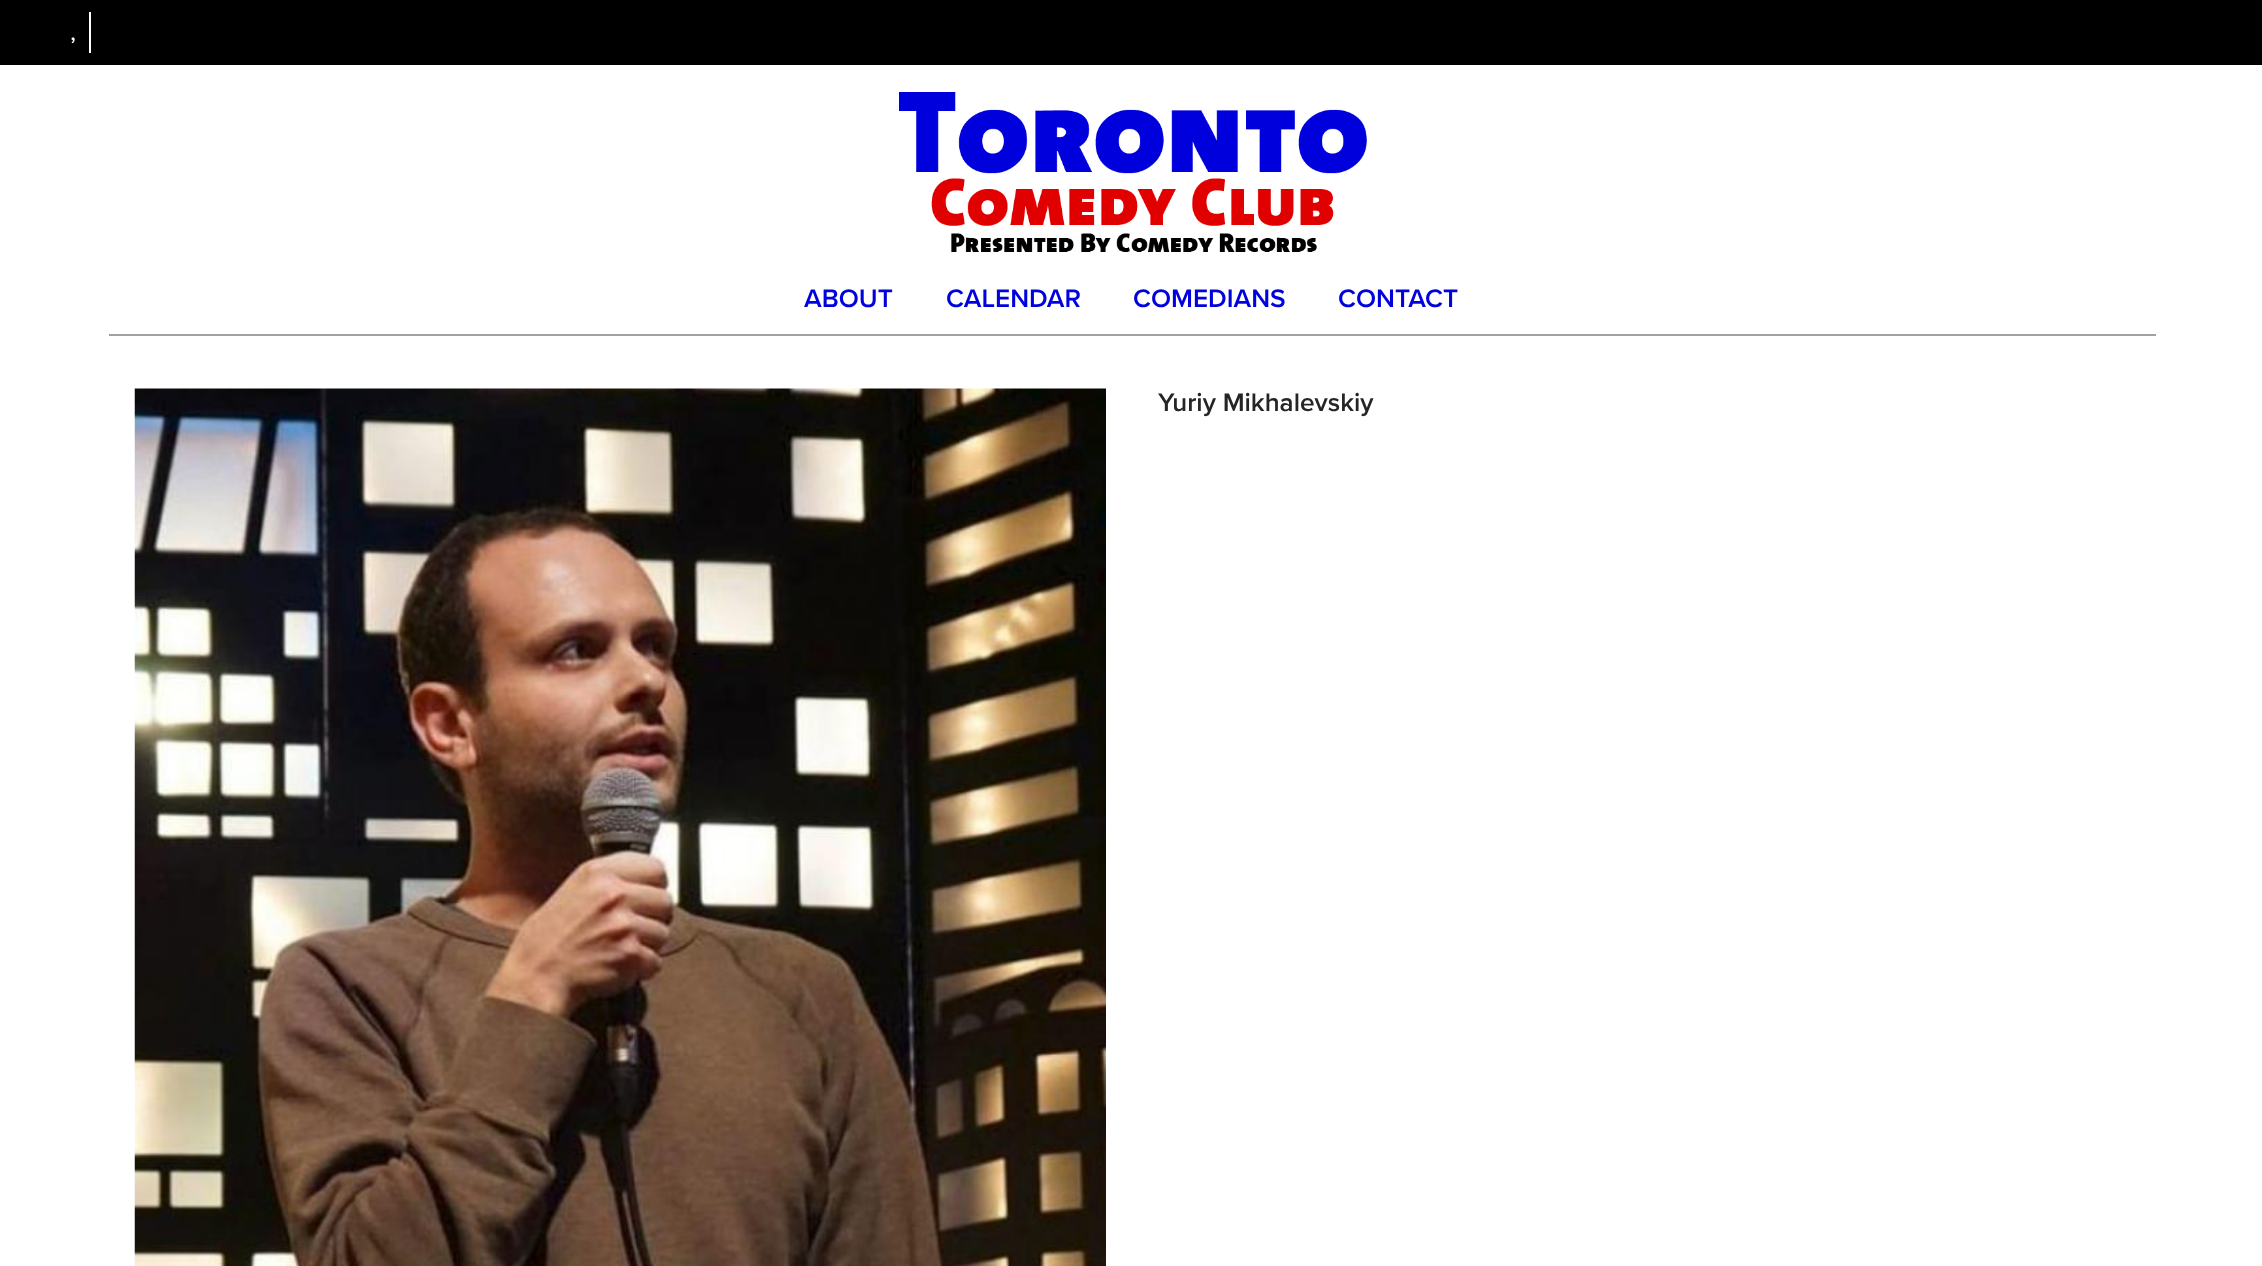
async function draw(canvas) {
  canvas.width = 2262
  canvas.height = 1266
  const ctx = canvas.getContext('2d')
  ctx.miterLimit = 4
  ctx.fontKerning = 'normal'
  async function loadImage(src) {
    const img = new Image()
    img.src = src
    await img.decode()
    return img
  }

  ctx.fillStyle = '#fff'
  ctx.fillRect(0, 0, 2262, 1266)
  ctx.fillStyle = '#000'
  ctx.fillRect(0, 0, 2262, 65)
  ctx.fillStyle = '#fff'
  ctx.fillRect(89, 12, 2, 41)
  ctx.font = '26.25px Proxima Nova'
  ctx.fillText(',', 70, 40)
  ctx.drawImage(await loadImage('image0.png'), 899, 92, 468, 160)
  ctx.font = '600 26.25px Proxima Nova'
  ctx.fillStyle = '#0001dd'
  ctx.fillText('ABOUT', 804, 307)
  ctx.fillText('CALENDAR', 946, 307)
  ctx.fillText('COMEDIANS', 1133, 307)
  ctx.fillText('CONTACT', 1338, 307)
  ctx.fillStyle = '#a1a1a1'
  ctx.fillRect(109, 334, 2047, 2)
  ctx.drawImage(await loadImage('image1.png'), 134, 388, 972, 878)
  ctx.fillStyle = '#252525'
  ctx.fillText('Yuriy Mikhalevskiy', 1158, 411)
}

draw(document.querySelector('canvas'))
